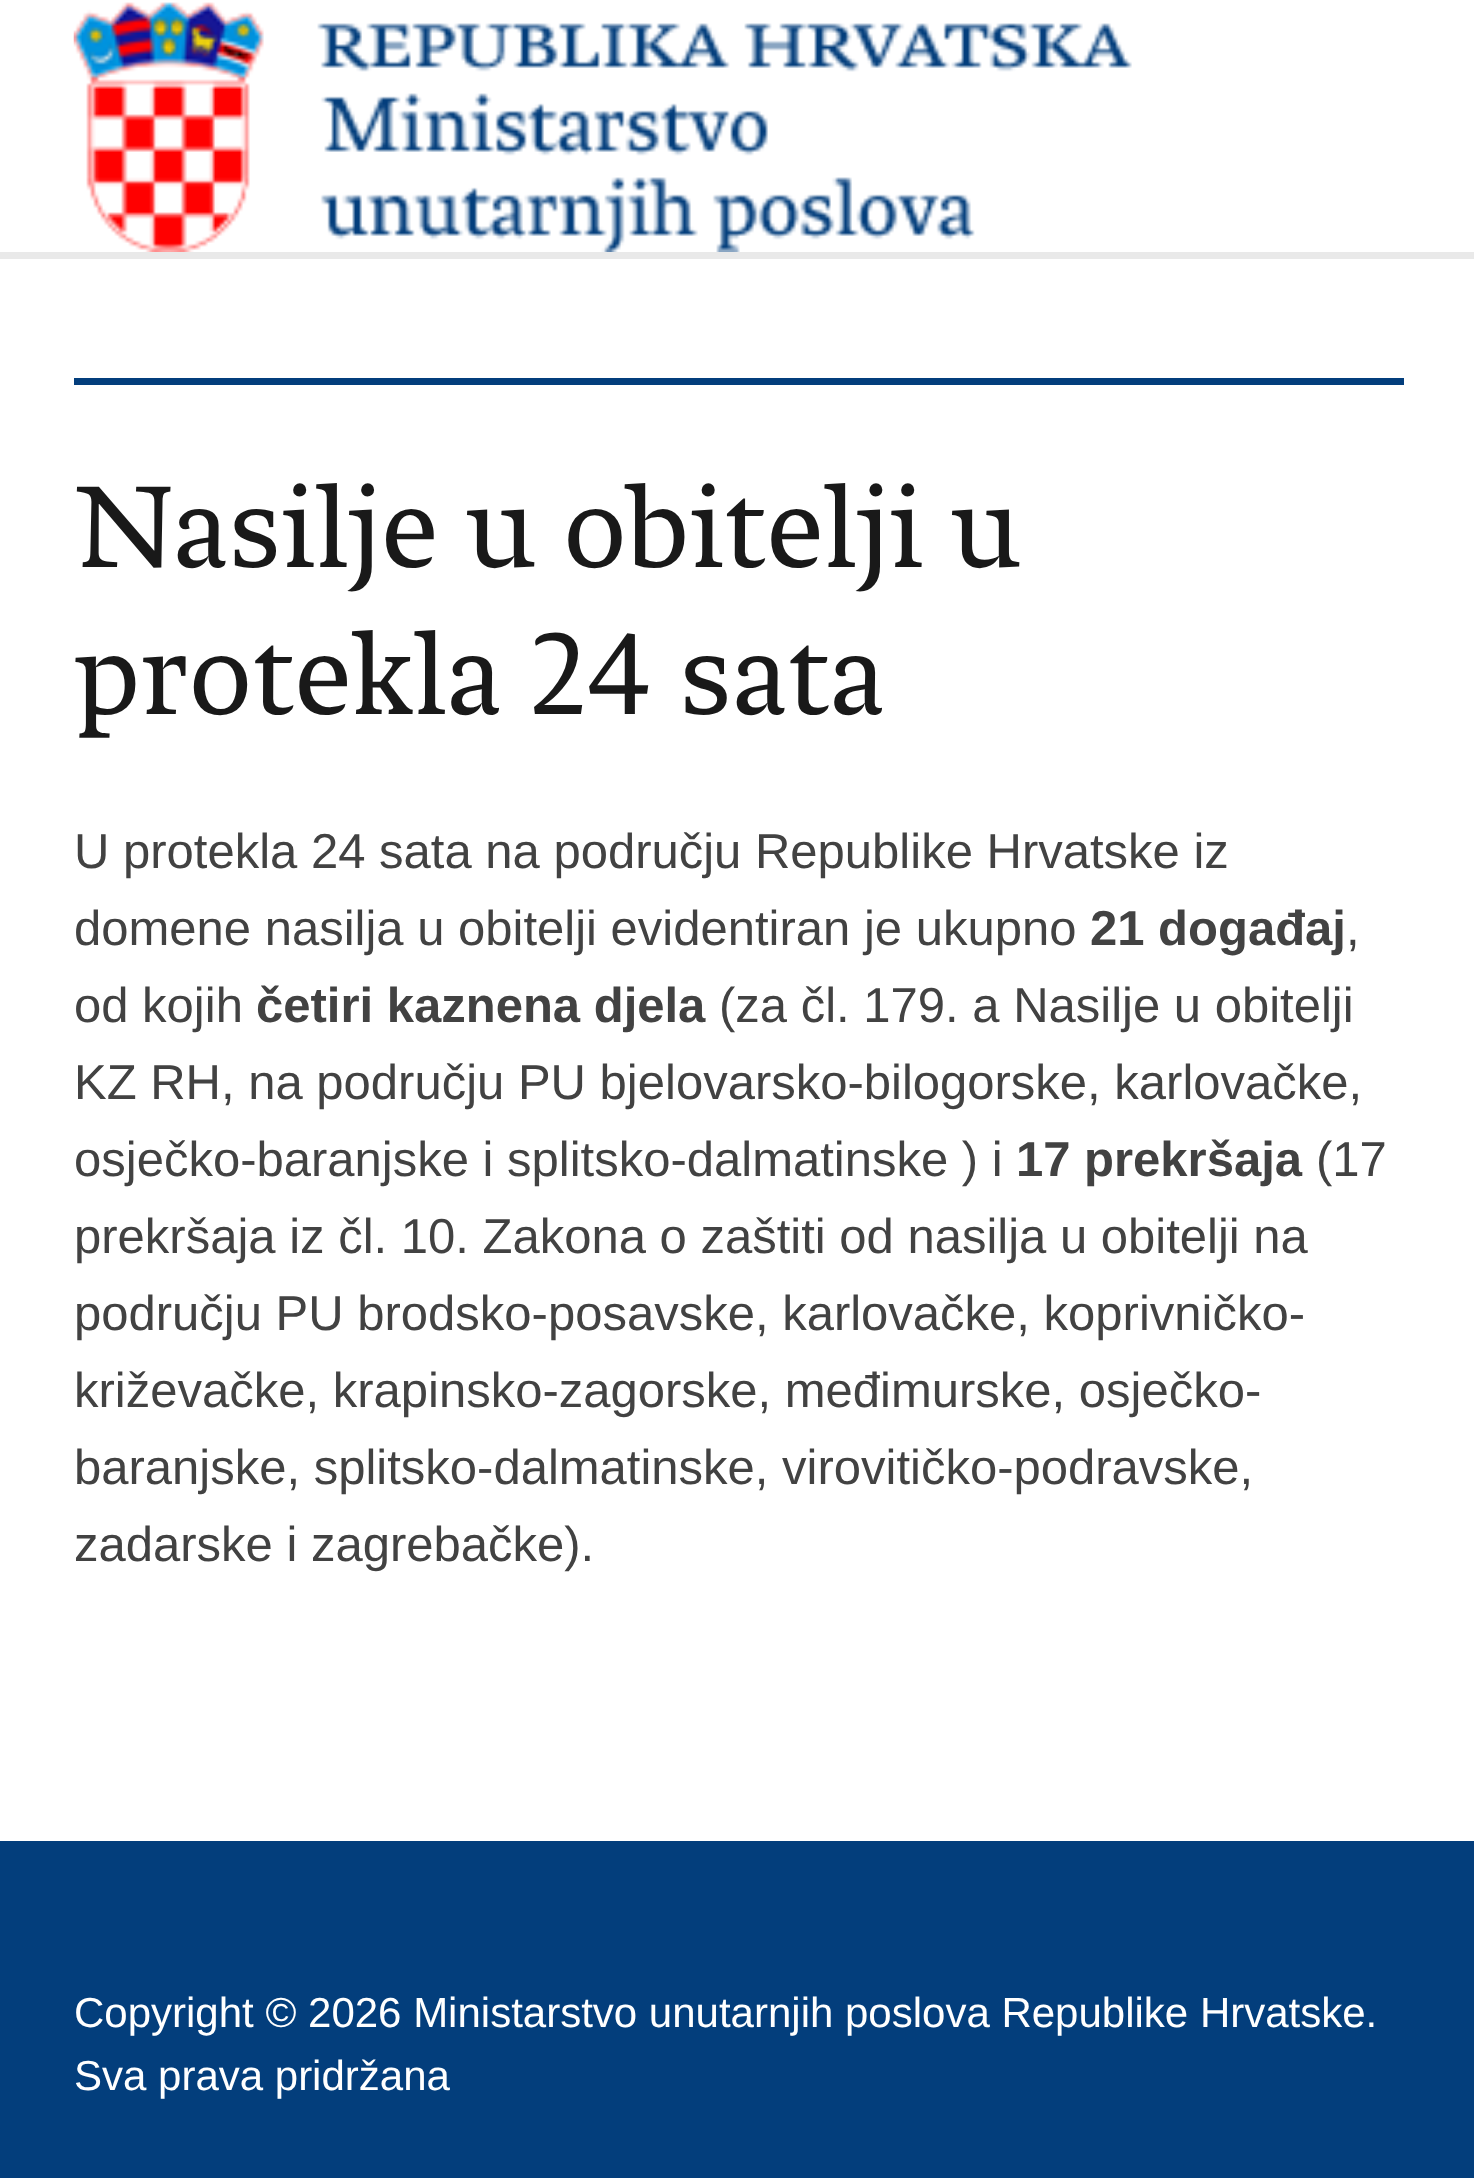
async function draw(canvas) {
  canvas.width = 1474
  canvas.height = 2178
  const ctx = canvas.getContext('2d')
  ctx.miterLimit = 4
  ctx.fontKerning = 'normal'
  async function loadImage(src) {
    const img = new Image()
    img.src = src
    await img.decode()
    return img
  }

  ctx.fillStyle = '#fff'
  ctx.fillRect(0, 0, 1474, 2178)
  ctx.fillStyle = '#e9e9e9'
  ctx.fillRect(0, 252, 1474, 7)
  ctx.drawImage(await loadImage('image0.png'), 73, 2, 1059, 250)
  ctx.fillStyle = '#033e7c'
  ctx.fillRect(74, 378, 1330, 7)
  ctx.font = '122.5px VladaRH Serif'
  ctx.fillStyle = '#191919'
  ctx.fillText('Nasilje u obitelji u', 74, 567)
  ctx.fillText('protekla 24 sata', 74, 714)
  ctx.font = '49px Liberation Sans'
  ctx.fillStyle = '#424242'
  ctx.fillText('U protekla 24 sata na području Republike Hrvatske iz', 74, 868)
  ctx.fillText('domene nasilja u obitelji evidentiran je ukupno', 74, 945)
  ctx.font = 'bold 49px Liberation Sans'
  ctx.fillText('21 događaj', 1090, 945)
  ctx.font = '49px Liberation Sans'
  ctx.fillText(',', 1346, 945)
  ctx.fillText('od kojih', 74, 1022)
  ctx.font = 'bold 49px Liberation Sans'
  ctx.fillText('četiri kaznena djela', 256, 1022)
  ctx.font = '49px Liberation Sans'
  ctx.fillText('(za čl. 179. a Nasilje u obitelji', 719, 1022)
  ctx.fillText('KZ RH, na području PU bjelovarsko-bilogorske, karlovačke,', 74, 1099)
  ctx.fillText('osječko-baranjske i splitsko-dalmatinske ) i', 74, 1176)
  ctx.font = 'bold 49px Liberation Sans'
  ctx.fillText('17 prekršaja', 1016, 1176)
  ctx.font = '49px Liberation Sans'
  ctx.fillText('(17', 1316, 1176)
  ctx.fillText('prekršaja iz čl. 10. Zakona o zaštiti od nasilja u obitelji na', 74, 1253)
  ctx.fillText('području PU brodsko-posavske, karlovačke, koprivničko-', 74, 1330)
  ctx.fillText('križevačke, krapinsko-zagorske, međimurske, osječko-', 74, 1407)
  ctx.fillText('baranjske, splitsko-dalmatinske, virovitičko-podravske,', 74, 1484)
  ctx.fillText('zadarske i zagrebačke).', 74, 1561)
  ctx.fillStyle = '#033e7c'
  ctx.fillRect(0, 1841, 1474, 337)
  ctx.font = '42px Liberation Sans'
  ctx.fillStyle = '#fff'
  ctx.fillText('Copyright © 2026 Ministarstvo unutarnjih poslova Republike Hrvatske.', 74, 2027)
  ctx.fillText('Sva prava pridržana', 74, 2090)
}

draw(document.querySelector('canvas'))
